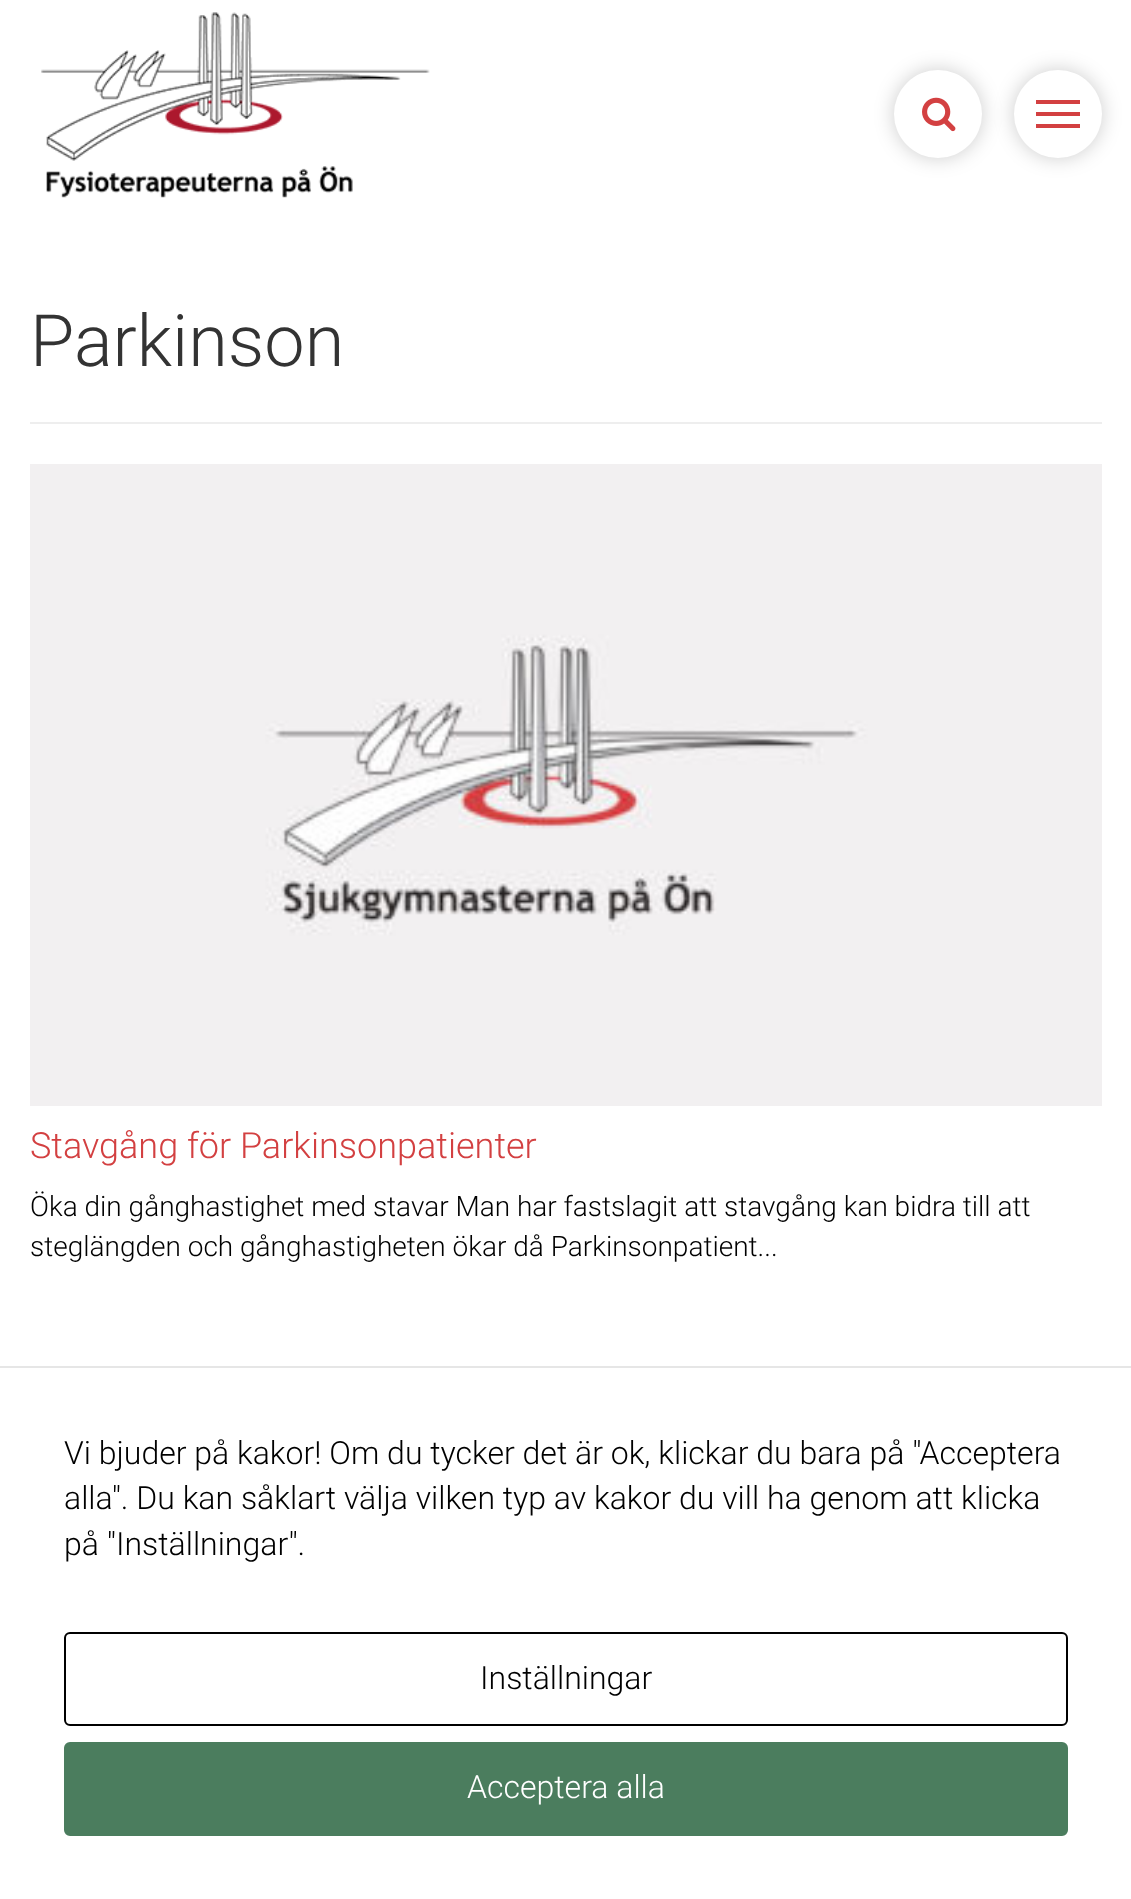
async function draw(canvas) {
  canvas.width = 1131
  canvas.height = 1899
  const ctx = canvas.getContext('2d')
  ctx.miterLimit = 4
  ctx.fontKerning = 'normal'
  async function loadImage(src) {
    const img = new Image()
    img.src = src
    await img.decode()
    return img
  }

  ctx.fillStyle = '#fff'
  ctx.fillRect(0, 0, 1131, 1899)
  ctx.drawImage(await loadImage('image0.png'), 41, 12, 389, 186)
  ctx.fillStyle = '#00000033'
  ctx.filter = 'blur(10px)'
  ctx.beginPath()
  ctx.roundRect(894, 70, 88, 88, 44)
  ctx.fill()
  ctx.filter = 'none'
  ctx.fillStyle = '#fff'
  ctx.beginPath()
  ctx.arc(938, 114, 44, 0, 2 * Math.PI)
  ctx.fill()
  ctx.drawImage(await loadImage('image1.png'), 922, 97, 34, 35)
  ctx.fillStyle = '#00000033'
  ctx.filter = 'blur(10px)'
  ctx.beginPath()
  ctx.roundRect(1014, 70, 88, 88, 44)
  ctx.fill()
  ctx.filter = 'none'
  ctx.fillStyle = '#fff'
  ctx.beginPath()
  ctx.arc(1058, 114, 44, 0, 2 * Math.PI)
  ctx.fill()
  ctx.fillStyle = '#d34041'
  ctx.fillRect(1036, 100, 44, 4)
  ctx.fillRect(1036, 112, 44, 4)
  ctx.fillRect(1036, 124, 44, 4)
  ctx.fillStyle = '#eee'
  ctx.fillRect(30, 422, 1072, 2)
  ctx.font = '300 72px Roboto'
  ctx.fillStyle = '#333'
  ctx.fillText('Parkinson', 30, 366)
  ctx.drawImage(await loadImage('image2.png'), 30, 464, 1072, 642)
  ctx.font = '300 36px Roboto'
  ctx.fillStyle = '#d34041'
  ctx.fillText('Stavgång för Parkinsonpatienter', 30, 1158)
  ctx.font = '300 28px Roboto'
  ctx.fillStyle = '#000'
  ctx.fillText('Öka din gånghastighet med stavar Man har fastslagit att stavgång kan bidra till att', 30, 1216)
  ctx.fillText('steglängden och gånghastigheten ökar då Parkinsonpatient...', 30, 1256)
  ctx.fillStyle = '#e6e6e6'
  ctx.fillRect(0, 1366, 1131, 2)
  ctx.font = '300 32px Roboto'
  ctx.fillStyle = '#000'
  ctx.fillText('Vi bjuder på kakor! Om du tycker det är ok, klickar du bara på "Acceptera', 64, 1464)
  ctx.fillText('alla". Du kan såklart välja vilken typ av kakor du vill ha genom att klicka', 64, 1509)
  ctx.fillText('på "Inställningar".', 64, 1555)
  ctx.beginPath()
  ctx.roundRect(65, 1633, 1002, 92, 5)
  ctx.strokeStyle = '#000'
  ctx.lineWidth = 2
  ctx.stroke()
  ctx.fillText('Inställningar', 480, 1689)
  ctx.fillStyle = '#4b7d5e'
  ctx.beginPath()
  ctx.roundRect(65, 1743, 1002, 92, 5)
  ctx.fill()
  ctx.strokeStyle = '#4b7d5e'
  ctx.stroke()
  ctx.fillStyle = '#fff'
  ctx.fillText('Acceptera alla', 467, 1798)
}

draw(document.querySelector('canvas'))
